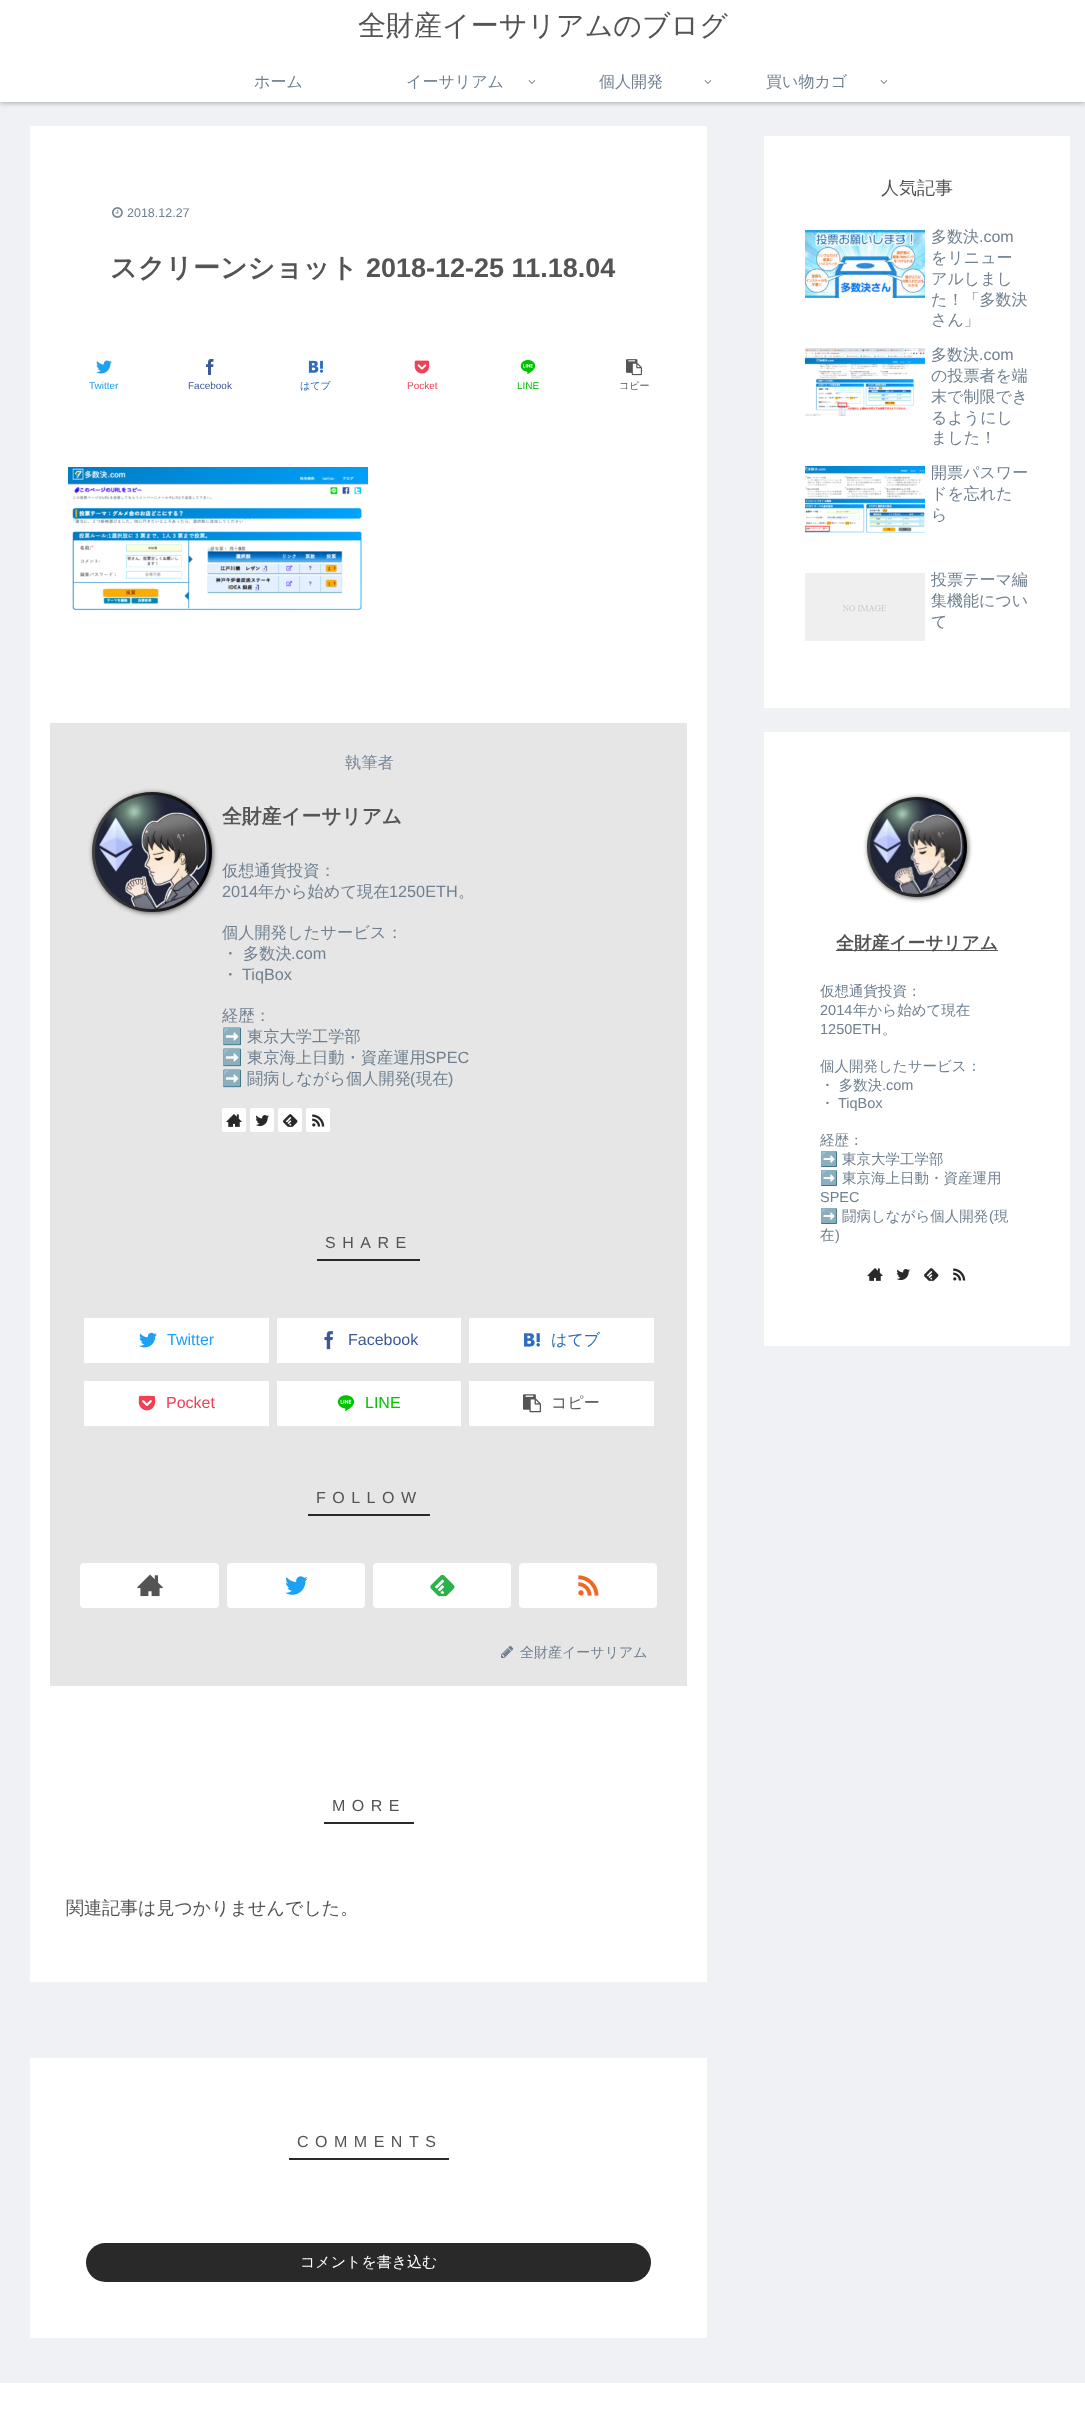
async function draw(canvas) {
  canvas.width = 1085
  canvas.height = 2423
  const ctx = canvas.getContext('2d')
  ctx.miterLimit = 4
  ctx.fontKerning = 'normal'
  async function loadImage(src) {
    const img = new Image()
    img.src = src
    await img.decode()
    return img
  }
  let gradient

  ctx.fillStyle = '#eff1f5'
  ctx.fillRect(0, 0, 1085, 2423)
  ctx.fillStyle = '#a9a9a9'
  ctx.filter = 'blur(2.5px)'
  ctx.beginPath()
  ctx.rect(0, -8, 1085, 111)
  ctx.fill()
  ctx.filter = 'none'
  ctx.fillStyle = '#fff'
  ctx.fillRect(0, 0, 1085, 102)
  ctx.font = '500 28px WenQuanYi Zen Hei'
  ctx.fillStyle = '#545454'
  ctx.fillText('全財産イーサリアムのブログ', 358, 35)
  ctx.font = '500 16px WenQuanYi Zen Hei'
  ctx.fillStyle = '#708090'
  ctx.fillText('ホーム', 254, 87)
  ctx.fillText('イーサリアム', 406, 87)
  ctx.drawImage(await loadImage('image0.png'), 528, 80, 8, 4)
  ctx.fillText('個人開発', 599, 87)
  ctx.drawImage(await loadImage('image0.png'), 704, 80, 8, 4)
  ctx.fillText('買い物カゴ', 766, 87)
  ctx.drawImage(await loadImage('image0.png'), 880, 80, 8, 4)
  ctx.fillStyle = '#fff'
  ctx.fillRect(30, 126, 677, 1856)
  ctx.drawImage(await loadImage('image1.png'), 112, 207, 11, 11)
  ctx.font = '12.5px Liberation Sans'
  ctx.fillStyle = '#708090'
  ctx.fillText('2018.12.27', 127, 217)
  ctx.font = 'bold 27px WenQuanYi Zen Hei'
  ctx.fillStyle = '#545454'
  ctx.fillText('スクリーンショット', 110, 277)
  ctx.font = 'bold 27px Liberation Sans'
  ctx.fillText('2018-12-25 11.18.04', 366, 277)
  ctx.drawImage(await loadImage('image2.png'), 96, 360, 16, 14)
  ctx.font = '10px Liberation Sans'
  ctx.fillStyle = '#1da1f2'
  ctx.fillText('Twitter', 89, 389)
  ctx.drawImage(await loadImage('image3.png'), 206, 359, 8, 16)
  ctx.fillStyle = '#3b5998'
  ctx.fillText('Facebook', 188, 389)
  ctx.drawImage(await loadImage('image4.png'), 308, 360, 16, 13)
  ctx.font = '500 10px WenQuanYi Zen Hei'
  ctx.fillStyle = '#2c6ebd'
  ctx.fillText('はてブ', 300, 389)
  ctx.drawImage(await loadImage('image5.png'), 414, 360, 16, 14)
  ctx.font = '10px Liberation Sans'
  ctx.fillStyle = '#ef4056'
  ctx.fillText('Pocket', 407, 389)
  ctx.drawImage(await loadImage('image6.png'), 520, 360, 16, 14)
  ctx.fillStyle = '#00c300'
  ctx.fillText('LINE', 517, 389)
  ctx.drawImage(await loadImage('image7.png'), 626, 359, 16, 17)
  ctx.font = '500 10px WenQuanYi Zen Hei'
  ctx.fillStyle = '#545454'
  ctx.fillText('コピー', 619, 389)
  ctx.drawImage(await loadImage('image8.png'), 68, 467, 300, 144)
  ctx.fillStyle = '#e6e6e6'
  ctx.fillRect(50, 723, 637, 963)
  ctx.font = '500 16.25px WenQuanYi Zen Hei'
  ctx.fillStyle = '#789'
  ctx.fillText('執筆者', 345, 768)
  ctx.fillStyle = '#545454'
  ctx.filter = 'blur(2.5px)'
  ctx.beginPath()
  ctx.roundRect(93, 793, 120, 120, 60)
  ctx.fill()
  ctx.filter = 'none'
  gradient = ctx.createLinearGradient(92, 852, 212, 852)
  gradient.addColorStop(0, '#434343')
  gradient.addColorStop(1, '#000')
  ctx.fillStyle = gradient
  ctx.beginPath()
  ctx.arc(152, 852, 60, 0, 2 * Math.PI)
  ctx.fill()
  ctx.drawImage(await loadImage('image9.png'), 95, 795, 114, 114)
  ctx.font = 'bold 19.75px WenQuanYi Zen Hei'
  ctx.fillStyle = '#545454'
  ctx.fillText('全財産イーサリアム', 222, 823)
  ctx.font = '500 16.25px WenQuanYi Zen Hei'
  ctx.fillStyle = '#708090'
  ctx.fillText('仮想通貨投資：', 222, 876)
  ctx.font = '16.25px Liberation Sans'
  ctx.fillText('2014', 222, 897)
  ctx.font = '500 16.25px WenQuanYi Zen Hei'
  ctx.fillText('年から始めて現在', 258, 897)
  ctx.font = '16.25px Liberation Sans'
  ctx.fillText('1250ETH', 389, 897)
  ctx.font = '500 16.25px WenQuanYi Zen Hei'
  ctx.fillText('。', 458, 897)
  ctx.fillText('個人開発したサービス：', 222, 938)
  ctx.fillText('・ 多数決', 222, 959)
  ctx.font = '16.25px Liberation Sans'
  ctx.fillText('.com', 291, 959)
  ctx.font = '500 16.25px WenQuanYi Zen Hei'
  ctx.fillText('・', 222, 980)
  ctx.font = '16.25px Liberation Sans'
  ctx.fillText('TiqBox', 242, 980)
  ctx.font = '500 16.25px WenQuanYi Zen Hei'
  ctx.fillText('経歴：', 222, 1021)
  ctx.font = '16.25px Noto Color Emoji'
  ctx.fillText('➡️', 222, 1042)
  ctx.font = '500 16.25px WenQuanYi Zen Hei'
  ctx.fillText('東京大学工学部', 247, 1042)
  ctx.font = '16.25px Noto Color Emoji'
  ctx.fillText('➡️', 222, 1063)
  ctx.font = '500 16.25px WenQuanYi Zen Hei'
  ctx.fillText('東京海上日動・資産運用', 247, 1063)
  ctx.font = '16.25px Liberation Sans'
  ctx.fillText('SPEC', 425, 1063)
  ctx.font = '16.25px Noto Color Emoji'
  ctx.fillText('➡️', 222, 1084)
  ctx.font = '500 16.25px WenQuanYi Zen Hei'
  ctx.fillText('闘病しながら個人開発', 247, 1084)
  ctx.font = '16.25px Liberation Sans'
  ctx.fillText('(', 410, 1084)
  ctx.font = '500 16.25px WenQuanYi Zen Hei'
  ctx.fillText('現在', 416, 1084)
  ctx.font = '16.25px Liberation Sans'
  ctx.fillText(')', 448, 1084)
  ctx.fillStyle = '#fff'
  ctx.beginPath()
  ctx.roundRect(222, 1108, 24, 24, 2)
  ctx.fill()
  ctx.drawImage(await loadImage('image10.png'), 226, 1114, 16, 13)
  ctx.beginPath()
  ctx.roundRect(250, 1108, 24, 24, 2)
  ctx.fill()
  ctx.drawImage(await loadImage('image11.png'), 255, 1115, 14, 12)
  ctx.beginPath()
  ctx.roundRect(278, 1108, 24, 24, 2)
  ctx.fill()
  ctx.drawImage(await loadImage('image12.png'), 283, 1114, 15, 13)
  ctx.beginPath()
  ctx.roundRect(306, 1108, 24, 24, 2)
  ctx.fill()
  ctx.drawImage(await loadImage('image13.png'), 312, 1114, 13, 13)
  ctx.letterSpacing = '6.5px'
  ctx.font = '16px Liberation Sans'
  ctx.fillStyle = '#545454'
  ctx.fillText('SHARE', 325, 1248)
  ctx.fillStyle = '#292929'
  ctx.fillRect(317, 1259, 103, 2)
  ctx.fillStyle = '#fff'
  ctx.fillRect(84, 1318, 185, 45)
  ctx.drawImage(await loadImage('image14.png'), 139, 1332, 18, 16)
  ctx.letterSpacing = '0px'
  ctx.fillStyle = '#1da1f2'
  ctx.fillText('Twitter', 167, 1345)
  ctx.fillStyle = '#fff'
  ctx.fillRect(277, 1318, 184, 45)
  ctx.drawImage(await loadImage('image15.png'), 324, 1331, 9, 19)
  ctx.fillStyle = '#3b5998'
  ctx.fillText('Facebook', 348, 1345)
  ctx.fillStyle = '#fff'
  ctx.fillRect(469, 1318, 185, 45)
  ctx.drawImage(await loadImage('image16.png'), 524, 1333, 16, 14)
  ctx.font = '500 16px WenQuanYi Zen Hei'
  ctx.fillStyle = '#2c6ebd'
  ctx.fillText('はてブ', 551, 1345)
  ctx.fillStyle = '#fff'
  ctx.fillRect(84, 1381, 185, 45)
  ctx.drawImage(await loadImage('image17.png'), 138, 1395, 18, 16)
  ctx.font = '16px Liberation Sans'
  ctx.fillStyle = '#ef4056'
  ctx.fillText('Pocket', 166, 1408)
  ctx.fillStyle = '#fff'
  ctx.fillRect(277, 1381, 184, 45)
  ctx.drawImage(await loadImage('image18.png'), 337, 1395, 18, 16)
  ctx.fillStyle = '#00c300'
  ctx.fillText('LINE', 365, 1408)
  ctx.fillStyle = '#fff'
  ctx.fillRect(469, 1381, 185, 45)
  ctx.drawImage(await loadImage('image19.png'), 523, 1394, 18, 19)
  ctx.font = '500 16px WenQuanYi Zen Hei'
  ctx.fillStyle = '#545454'
  ctx.fillText('コピー', 551, 1408)
  ctx.letterSpacing = '6.5px'
  ctx.font = '16px Liberation Sans'
  ctx.fillText('FOLLOW', 316, 1503)
  ctx.fillStyle = '#292929'
  ctx.fillRect(308, 1514, 122, 2)
  ctx.fillStyle = '#fff'
  ctx.beginPath()
  ctx.roundRect(80, 1563, 139, 45, 4)
  ctx.fill()
  ctx.drawImage(await loadImage('image20.png'), 137, 1574, 26, 23)
  ctx.beginPath()
  ctx.roundRect(227, 1563, 138, 45, 4)
  ctx.fill()
  ctx.drawImage(await loadImage('image21.png'), 285, 1576, 23, 19)
  ctx.beginPath()
  ctx.roundRect(373, 1563, 138, 45, 4)
  ctx.fill()
  ctx.drawImage(await loadImage('image22.png'), 430, 1574, 25, 23)
  ctx.beginPath()
  ctx.roundRect(519, 1563, 138, 45, 4)
  ctx.fill()
  ctx.drawImage(await loadImage('image23.png'), 578, 1575, 21, 21)
  ctx.drawImage(await loadImage('image24.png'), 501, 1645, 13, 13)
  ctx.letterSpacing = '0px'
  ctx.font = '500 14px WenQuanYi Zen Hei'
  ctx.fillStyle = '#708090'
  ctx.fillText('全財産イーサリアム', 520, 1657)
  ctx.letterSpacing = '6.5px'
  ctx.font = '16px Liberation Sans'
  ctx.fillStyle = '#545454'
  ctx.fillText('MORE', 332, 1811)
  ctx.fillStyle = '#292929'
  ctx.fillRect(324, 1822, 90, 2)
  ctx.letterSpacing = '0px'
  ctx.font = '500 18px WenQuanYi Zen Hei'
  ctx.fillStyle = '#545454'
  ctx.fillText('関連記事は見つかりませんでした。', 66, 1914)
  ctx.fillStyle = '#fff'
  ctx.fillRect(30, 2058, 677, 280)
  ctx.letterSpacing = '6.5px'
  ctx.font = '16px Liberation Sans'
  ctx.fillStyle = '#545454'
  ctx.fillText('COMMENTS', 297, 2147)
  ctx.fillStyle = '#292929'
  ctx.fillRect(289, 2158, 160, 2)
  ctx.beginPath()
  ctx.roundRect(86, 2243, 565, 39, 19.5)
  ctx.fill()
  ctx.letterSpacing = '0px'
  ctx.font = '500 15px WenQuanYi Zen Hei'
  ctx.fillStyle = '#fff'
  ctx.fillText('コメントを書き込む', 300, 2267)
  ctx.fillRect(764, 136, 306, 572)
  ctx.font = '500 18px WenQuanYi Zen Hei'
  ctx.fillStyle = '#545454'
  ctx.fillText('人気記事', 881, 194)
  ctx.drawImage(await loadImage('image25.png'), 805, 230, 120, 68)
  ctx.font = '500 16px WenQuanYi Zen Hei'
  ctx.fillStyle = '#708090'
  ctx.fillText('多数決', 931, 242)
  ctx.font = '16px Liberation Sans'
  ctx.fillText('.com', 979, 242)
  ctx.font = '500 16px WenQuanYi Zen Hei'
  ctx.fillText('をリニュー', 931, 263)
  ctx.fillText('アルしまし', 931, 284)
  ctx.fillText('た！「多数決', 931, 305)
  ctx.fillText('さん」', 931, 325)
  ctx.drawImage(await loadImage('image26.png'), 805, 348, 120, 68)
  ctx.fillText('多数決', 931, 360)
  ctx.font = '16px Liberation Sans'
  ctx.fillText('.com', 979, 360)
  ctx.font = '500 16px WenQuanYi Zen Hei'
  ctx.fillText('の投票者を端', 931, 381)
  ctx.fillText('末で制限でき', 931, 402)
  ctx.fillText('るようにし', 931, 423)
  ctx.fillText('ました！', 931, 443)
  ctx.drawImage(await loadImage('image27.png'), 805, 466, 120, 67)
  ctx.fillText('開票パスワー', 931, 478)
  ctx.fillText('ドを忘れた', 931, 499)
  ctx.fillText('ら', 931, 520)
  ctx.drawImage(await loadImage('image28.png'), 805, 573, 120, 68)
  ctx.fillText('投票テーマ編', 931, 585)
  ctx.fillText('集機能につい', 931, 606)
  ctx.fillText('て', 931, 627)
  ctx.fillStyle = '#fff'
  ctx.fillRect(764, 732, 306, 614)
  ctx.fillStyle = '#545454'
  ctx.filter = 'blur(2.5px)'
  ctx.beginPath()
  ctx.roundRect(868, 798, 100, 100, 50)
  ctx.fill()
  ctx.filter = 'none'
  gradient = ctx.createLinearGradient(867, 847, 967, 847)
  gradient.addColorStop(0, '#434343')
  gradient.addColorStop(1, '#000')
  ctx.fillStyle = gradient
  ctx.beginPath()
  ctx.arc(917, 847, 50, 0, 2 * Math.PI)
  ctx.fill()
  ctx.drawImage(await loadImage('image29.png'), 870, 800, 94, 94)
  ctx.fillStyle = '#545454'
  ctx.fillRect(836, 950, 162, 1)
  ctx.font = 'bold 17.75px WenQuanYi Zen Hei'
  ctx.fillText('全財産イーサリアム', 836, 949)
  ctx.font = '500 14.5px WenQuanYi Zen Hei'
  ctx.fillStyle = '#708090'
  ctx.fillText('仮想通貨投資：', 820, 996)
  ctx.font = '14.5px Liberation Sans'
  ctx.fillText('2014', 820, 1015)
  ctx.font = '500 14.5px WenQuanYi Zen Hei'
  ctx.fillText('年から始めて現在', 853, 1015)
  ctx.font = '14.5px Liberation Sans'
  ctx.fillText('1250ETH', 820, 1034)
  ctx.font = '500 14.5px WenQuanYi Zen Hei'
  ctx.fillText('。', 882, 1034)
  ctx.fillText('個人開発したサービス：', 820, 1071)
  ctx.fillText('・ 多数決', 820, 1090)
  ctx.font = '14.5px Liberation Sans'
  ctx.fillText('.com', 882, 1090)
  ctx.font = '500 14.5px WenQuanYi Zen Hei'
  ctx.fillText('・', 820, 1108)
  ctx.font = '14.5px Liberation Sans'
  ctx.fillText('TiqBox', 838, 1108)
  ctx.font = '500 14.5px WenQuanYi Zen Hei'
  ctx.fillText('経歴：', 820, 1145)
  ctx.font = '14.5px Noto Color Emoji'
  ctx.fillText('➡️', 820, 1164)
  ctx.font = '500 14.5px WenQuanYi Zen Hei'
  ctx.fillText('東京大学工学部', 842, 1164)
  ctx.font = '14.5px Noto Color Emoji'
  ctx.fillText('➡️', 820, 1183)
  ctx.font = '500 14.5px WenQuanYi Zen Hei'
  ctx.fillText('東京海上日動・資産運用', 842, 1183)
  ctx.font = '14.5px Liberation Sans'
  ctx.fillText('SPEC', 820, 1202)
  ctx.font = '14.5px Noto Color Emoji'
  ctx.fillText('➡️', 820, 1221)
  ctx.font = '500 14.5px WenQuanYi Zen Hei'
  ctx.fillText('闘病しながら個人開発', 842, 1221)
  ctx.font = '14.5px Liberation Sans'
  ctx.fillText('(', 989, 1221)
  ctx.font = '500 14.5px WenQuanYi Zen Hei'
  ctx.fillText('現', 994, 1221)
  ctx.fillText('在', 820, 1240)
  ctx.font = '14.5px Liberation Sans'
  ctx.fillText(')', 835, 1240)
  ctx.drawImage(await loadImage('image10.png'), 867, 1268, 16, 13)
  ctx.drawImage(await loadImage('image11.png'), 896, 1269, 14, 12)
  ctx.drawImage(await loadImage('image12.png'), 924, 1268, 15, 13)
  ctx.drawImage(await loadImage('image13.png'), 953, 1268, 13, 13)
  ctx.fillStyle = '#fff'
  ctx.fillRect(0, 2383, 1085, 40)
}

draw(document.querySelector('canvas'))
